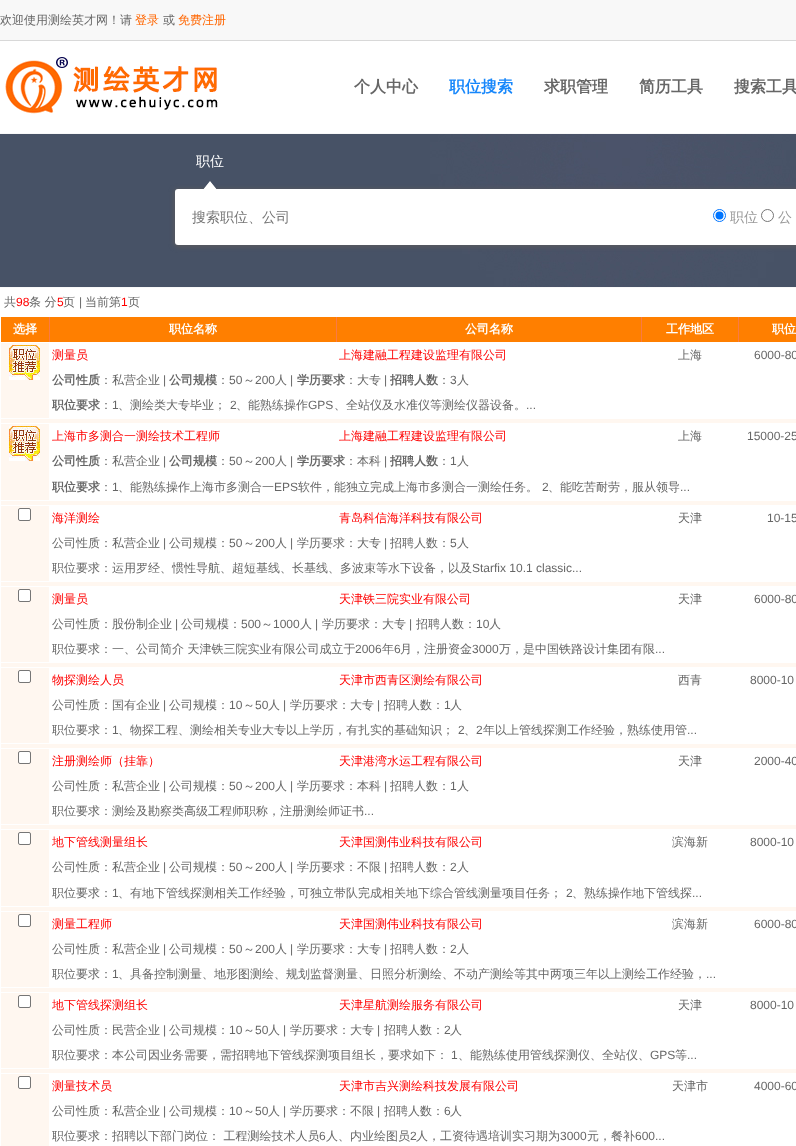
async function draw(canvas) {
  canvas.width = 796
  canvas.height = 1146
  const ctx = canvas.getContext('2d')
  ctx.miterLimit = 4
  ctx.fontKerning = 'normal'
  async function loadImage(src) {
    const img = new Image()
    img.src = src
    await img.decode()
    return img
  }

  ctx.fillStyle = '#f8f8f8'
  ctx.fillRect(0, 0, 796, 1146)
  ctx.font = '500 12px WenQuanYi Zen Hei'
  ctx.fillStyle = '#666'
  ctx.fillText('欢迎使用测绘英才网！请', 0, 24)
  ctx.fillStyle = '#f60'
  ctx.fillText('登录', 135, 24)
  ctx.fillStyle = '#666'
  ctx.fillText('或', 163, 24)
  ctx.fillStyle = '#f60'
  ctx.fillText('免费注册', 178, 24)
  ctx.fillStyle = '#fff'
  ctx.fillRect(0, 41, 796, 92)
  ctx.fillStyle = '#d8d8d8'
  ctx.fillRect(0, 40, 796, 1)
  ctx.drawImage(await loadImage('image0.png'), 5, 57, 213, 57)
  ctx.font = 'bold 16px WenQuanYi Zen Hei'
  ctx.fillStyle = '#666'
  ctx.fillText('个人中心', 354, 92)
  ctx.fillStyle = '#1787fb'
  ctx.fillText('职位搜索', 449, 92)
  ctx.fillStyle = '#666'
  ctx.fillText('求职管理', 544, 92)
  ctx.fillText('简历工具', 639, 92)
  ctx.fillText('搜索工具', 734, 92)
  ctx.drawImage(await loadImage('image1.png'), 0, 134, 796, 153)
  ctx.font = '500 14px WenQuanYi Zen Hei'
  ctx.fillStyle = '#fff'
  ctx.fillText('职位', 196, 166)
  ctx.fillStyle = '#5d5b5bd4'
  ctx.filter = 'blur(2.5px)'
  ctx.beginPath()
  ctx.roundRect(174, 189, 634, 58, 4)
  ctx.fill()
  ctx.filter = 'none'
  ctx.drawImage(await loadImage('image2.png'), 203, 181, 14, 8)
  ctx.fillStyle = '#fff'
  ctx.beginPath()
  ctx.roundRect(175, 189, 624, 56, 3)
  ctx.fill()
  ctx.fillStyle = '#757575'
  ctx.fillText('搜索职位、公司', 192, 222)
  ctx.beginPath()
  ctx.arc(719.5, 215.5, 6, 0, 2 * Math.PI)
  ctx.strokeStyle = '#0075ff'
  ctx.stroke()
  ctx.fillStyle = '#0075ff'
  ctx.beginPath()
  ctx.arc(719.5, 215.5, 4, 0, 2 * Math.PI)
  ctx.fill()
  ctx.fillStyle = '#999'
  ctx.fillText('职位', 730, 222)
  ctx.beginPath()
  ctx.arc(767.5, 215.5, 6, 0, 2 * Math.PI)
  ctx.strokeStyle = '#767676'
  ctx.stroke()
  ctx.fillText('公', 778, 222)
  ctx.fillStyle = '#fff'
  ctx.fillRect(0, 288, 796, 858)
  ctx.font = '500 12px WenQuanYi Zen Hei'
  ctx.fillStyle = '#666'
  ctx.fillText('共', 4, 306)
  ctx.font = '12px Liberation Sans'
  ctx.fillStyle = '#f00'
  ctx.fillText('98', 16, 306)
  ctx.font = '500 12px WenQuanYi Zen Hei'
  ctx.fillStyle = '#666'
  ctx.fillText('条 分', 29, 306)
  ctx.font = '12px Liberation Sans'
  ctx.fillStyle = '#f00'
  ctx.fillText('5', 57, 306)
  ctx.font = '500 12px WenQuanYi Zen Hei'
  ctx.fillStyle = '#666'
  ctx.fillText('页', 63, 306)
  ctx.font = '12px Liberation Sans'
  ctx.fillText('|', 79, 306)
  ctx.font = '500 12px WenQuanYi Zen Hei'
  ctx.fillText('当前第', 85, 306)
  ctx.font = '12px Liberation Sans'
  ctx.fillStyle = '#f00'
  ctx.fillText('1', 121, 306)
  ctx.font = '500 12px WenQuanYi Zen Hei'
  ctx.fillStyle = '#666'
  ctx.fillText('页', 128, 306)
  ctx.fillStyle = '#f97a44'
  ctx.fillRect(49, 317, 690, 25)
  ctx.fillStyle = '#ff7f00'
  ctx.fillRect(1, 317, 48, 25)
  ctx.font = 'bold 12px WenQuanYi Zen Hei'
  ctx.fillStyle = '#fff'
  ctx.fillText('选择', 13, 333)
  ctx.fillStyle = '#ff7f00'
  ctx.fillRect(50, 317, 286, 25)
  ctx.fillStyle = '#fff'
  ctx.fillText('职位名称', 169, 333)
  ctx.fillStyle = '#ff7f00'
  ctx.fillRect(337, 317, 304, 25)
  ctx.fillStyle = '#fff'
  ctx.fillText('公司名称', 465, 333)
  ctx.fillStyle = '#ff7f00'
  ctx.fillRect(642, 317, 96, 25)
  ctx.fillStyle = '#fff'
  ctx.fillText('工作地区', 666, 333)
  ctx.fillStyle = '#ff7f00'
  ctx.fillRect(739, 317, 57, 25)
  ctx.fillStyle = '#fff'
  ctx.fillText('职位', 772, 333)
  ctx.fillStyle = '#fff7f0'
  ctx.fillRect(1, 343, 48, 75)
  ctx.drawImage(await loadImage('image3.png'), 9, 345, 31, 35)
  ctx.font = '500 12px WenQuanYi Zen Hei'
  ctx.fillStyle = '#f00'
  ctx.fillText('测量员', 52, 359)
  ctx.fillText('上海建融工程建设监理有限公司', 339, 359)
  ctx.fillStyle = '#666'
  ctx.fillText('上海', 678, 359)
  ctx.font = '12px Liberation Sans'
  ctx.fillText('6000-80', 754, 359)
  ctx.font = 'bold 12px WenQuanYi Zen Hei'
  ctx.fillText('公司性质', 52, 384)
  ctx.font = '500 12px WenQuanYi Zen Hei'
  ctx.fillText('：私营企业', 100, 384)
  ctx.font = '12px Liberation Sans'
  ctx.fillText('|', 163, 384)
  ctx.font = 'bold 12px WenQuanYi Zen Hei'
  ctx.fillText('公司规模', 169, 384)
  ctx.font = '500 12px WenQuanYi Zen Hei'
  ctx.fillText('：', 217, 384)
  ctx.font = '12px Liberation Sans'
  ctx.fillText('50', 229, 384)
  ctx.font = '500 12px WenQuanYi Zen Hei'
  ctx.fillText('～', 243, 384)
  ctx.font = '12px Liberation Sans'
  ctx.fillText('200', 255, 384)
  ctx.font = '500 12px WenQuanYi Zen Hei'
  ctx.fillText('人', 275, 384)
  ctx.font = '12px Liberation Sans'
  ctx.fillText('|', 290, 384)
  ctx.font = 'bold 12px WenQuanYi Zen Hei'
  ctx.fillText('学历要求', 297, 384)
  ctx.font = '500 12px WenQuanYi Zen Hei'
  ctx.fillText('：大专', 345, 384)
  ctx.font = '12px Liberation Sans'
  ctx.fillText('|', 384, 384)
  ctx.font = 'bold 12px WenQuanYi Zen Hei'
  ctx.fillText('招聘人数', 390, 384)
  ctx.font = '500 12px WenQuanYi Zen Hei'
  ctx.fillText('：', 438, 384)
  ctx.font = '12px Liberation Sans'
  ctx.fillText('3', 450, 384)
  ctx.font = '500 12px WenQuanYi Zen Hei'
  ctx.fillText('人', 457, 384)
  ctx.font = 'bold 12px WenQuanYi Zen Hei'
  ctx.fillText('职位要求', 52, 409)
  ctx.font = '500 12px WenQuanYi Zen Hei'
  ctx.fillText('：', 100, 409)
  ctx.font = '12px Liberation Sans'
  ctx.fillText('1', 112, 409)
  ctx.font = '500 12px WenQuanYi Zen Hei'
  ctx.fillText('、测绘类大专毕业；', 118, 409)
  ctx.font = '12px Liberation Sans'
  ctx.fillText('2', 230, 409)
  ctx.font = '500 12px WenQuanYi Zen Hei'
  ctx.fillText('、能熟练操作', 236, 409)
  ctx.font = '12px Liberation Sans'
  ctx.fillText('GPS', 308, 409)
  ctx.font = '500 12px WenQuanYi Zen Hei'
  ctx.fillText('、全站仪及水准仪等测绘仪器设备。', 334, 409)
  ctx.font = '12px Liberation Sans'
  ctx.fillText('...', 526, 409)
  ctx.fillStyle = '#fff7f0'
  ctx.fillRect(1, 419, 795, 4)
  ctx.fillRect(1, 424, 48, 76)
  ctx.drawImage(await loadImage('image3.png'), 9, 426, 31, 35)
  ctx.font = '500 12px WenQuanYi Zen Hei'
  ctx.fillStyle = '#f00'
  ctx.fillText('上海市多测合一测绘技术工程师', 52, 440)
  ctx.fillText('上海建融工程建设监理有限公司', 339, 440)
  ctx.fillStyle = '#666'
  ctx.fillText('上海', 678, 440)
  ctx.font = '12px Liberation Sans'
  ctx.fillText('15000-25', 747, 440)
  ctx.font = 'bold 12px WenQuanYi Zen Hei'
  ctx.fillText('公司性质', 52, 465)
  ctx.font = '500 12px WenQuanYi Zen Hei'
  ctx.fillText('：私营企业', 100, 465)
  ctx.font = '12px Liberation Sans'
  ctx.fillText('|', 163, 465)
  ctx.font = 'bold 12px WenQuanYi Zen Hei'
  ctx.fillText('公司规模', 169, 465)
  ctx.font = '500 12px WenQuanYi Zen Hei'
  ctx.fillText('：', 217, 465)
  ctx.font = '12px Liberation Sans'
  ctx.fillText('50', 229, 465)
  ctx.font = '500 12px WenQuanYi Zen Hei'
  ctx.fillText('～', 243, 465)
  ctx.font = '12px Liberation Sans'
  ctx.fillText('200', 255, 465)
  ctx.font = '500 12px WenQuanYi Zen Hei'
  ctx.fillText('人', 275, 465)
  ctx.font = '12px Liberation Sans'
  ctx.fillText('|', 290, 465)
  ctx.font = 'bold 12px WenQuanYi Zen Hei'
  ctx.fillText('学历要求', 297, 465)
  ctx.font = '500 12px WenQuanYi Zen Hei'
  ctx.fillText('：本科', 345, 465)
  ctx.font = '12px Liberation Sans'
  ctx.fillText('|', 384, 465)
  ctx.font = 'bold 12px WenQuanYi Zen Hei'
  ctx.fillText('招聘人数', 390, 465)
  ctx.font = '500 12px WenQuanYi Zen Hei'
  ctx.fillText('：', 438, 465)
  ctx.font = '12px Liberation Sans'
  ctx.fillText('1', 450, 465)
  ctx.font = '500 12px WenQuanYi Zen Hei'
  ctx.fillText('人', 457, 465)
  ctx.font = 'bold 12px WenQuanYi Zen Hei'
  ctx.fillText('职位要求', 52, 491)
  ctx.font = '500 12px WenQuanYi Zen Hei'
  ctx.fillText('：', 100, 491)
  ctx.font = '12px Liberation Sans'
  ctx.fillText('1', 112, 491)
  ctx.font = '500 12px WenQuanYi Zen Hei'
  ctx.fillText('、能熟练操作上海市多测合一', 118, 491)
  ctx.font = '12px Liberation Sans'
  ctx.fillText('EPS', 274, 491)
  ctx.font = '500 12px WenQuanYi Zen Hei'
  ctx.fillText('软件，能独立完成上海市多测合一测绘任务。', 298, 491)
  ctx.font = '12px Liberation Sans'
  ctx.fillText('2', 542, 491)
  ctx.font = '500 12px WenQuanYi Zen Hei'
  ctx.fillText('、能吃苦耐劳，服从领导', 548, 491)
  ctx.font = '12px Liberation Sans'
  ctx.fillText('...', 680, 491)
  ctx.fillStyle = '#fff7f0'
  ctx.fillRect(1, 501, 795, 4)
  ctx.fillRect(1, 506, 48, 75)
  ctx.fillStyle = '#fff'
  ctx.beginPath()
  ctx.roundRect(18.5, 508.5, 12, 12, 1.5)
  ctx.fill()
  ctx.stroke()
  ctx.font = '500 12px WenQuanYi Zen Hei'
  ctx.fillStyle = '#f00'
  ctx.fillText('海洋测绘', 52, 522)
  ctx.fillText('青岛科信海洋科技有限公司', 339, 522)
  ctx.fillStyle = '#666'
  ctx.fillText('天津', 678, 522)
  ctx.font = '12px Liberation Sans'
  ctx.fillText('10-15', 767, 522)
  ctx.font = '500 12px WenQuanYi Zen Hei'
  ctx.fillText('公司性质：私营企业', 52, 547)
  ctx.font = '12px Liberation Sans'
  ctx.fillText('|', 163, 547)
  ctx.font = '500 12px WenQuanYi Zen Hei'
  ctx.fillText('公司规模：', 169, 547)
  ctx.font = '12px Liberation Sans'
  ctx.fillText('50', 229, 547)
  ctx.font = '500 12px WenQuanYi Zen Hei'
  ctx.fillText('～', 243, 547)
  ctx.font = '12px Liberation Sans'
  ctx.fillText('200', 255, 547)
  ctx.font = '500 12px WenQuanYi Zen Hei'
  ctx.fillText('人', 275, 547)
  ctx.font = '12px Liberation Sans'
  ctx.fillText('|', 290, 547)
  ctx.font = '500 12px WenQuanYi Zen Hei'
  ctx.fillText('学历要求：大专', 297, 547)
  ctx.font = '12px Liberation Sans'
  ctx.fillText('|', 384, 547)
  ctx.font = '500 12px WenQuanYi Zen Hei'
  ctx.fillText('招聘人数：', 390, 547)
  ctx.font = '12px Liberation Sans'
  ctx.fillText('5', 450, 547)
  ctx.font = '500 12px WenQuanYi Zen Hei'
  ctx.fillText('人', 457, 547)
  ctx.fillText('职位要求：运用罗经、惯性导航、超短基线、长基线、多波束等水下设备，以及', 52, 572)
  ctx.font = '12px Liberation Sans'
  ctx.fillText('Starfix 10.1 classic...', 472, 572)
  ctx.fillStyle = '#fff7f0'
  ctx.fillRect(1, 582, 795, 4)
  ctx.fillRect(1, 587, 48, 75)
  ctx.fillStyle = '#fff'
  ctx.beginPath()
  ctx.roundRect(18.5, 589.5, 12, 12, 1.5)
  ctx.fill()
  ctx.stroke()
  ctx.font = '500 12px WenQuanYi Zen Hei'
  ctx.fillStyle = '#f00'
  ctx.fillText('测量员', 52, 603)
  ctx.fillText('天津铁三院实业有限公司', 339, 603)
  ctx.fillStyle = '#666'
  ctx.fillText('天津', 678, 603)
  ctx.font = '12px Liberation Sans'
  ctx.fillText('6000-80', 754, 603)
  ctx.font = '500 12px WenQuanYi Zen Hei'
  ctx.fillText('公司性质：股份制企业', 52, 628)
  ctx.font = '12px Liberation Sans'
  ctx.fillText('|', 175, 628)
  ctx.font = '500 12px WenQuanYi Zen Hei'
  ctx.fillText('公司规模：', 181, 628)
  ctx.font = '12px Liberation Sans'
  ctx.fillText('500', 241, 628)
  ctx.font = '500 12px WenQuanYi Zen Hei'
  ctx.fillText('～', 261, 628)
  ctx.font = '12px Liberation Sans'
  ctx.fillText('1000', 273, 628)
  ctx.font = '500 12px WenQuanYi Zen Hei'
  ctx.fillText('人', 300, 628)
  ctx.font = '12px Liberation Sans'
  ctx.fillText('|', 315, 628)
  ctx.font = '500 12px WenQuanYi Zen Hei'
  ctx.fillText('学历要求：大专', 322, 628)
  ctx.font = '12px Liberation Sans'
  ctx.fillText('|', 409, 628)
  ctx.font = '500 12px WenQuanYi Zen Hei'
  ctx.fillText('招聘人数：', 416, 628)
  ctx.font = '12px Liberation Sans'
  ctx.fillText('10', 476, 628)
  ctx.font = '500 12px WenQuanYi Zen Hei'
  ctx.fillText('人', 489, 628)
  ctx.fillText('职位要求', 52, 653)
  ctx.fillText('：一、公司简介 天津铁三院实业有限公司成立于', 100, 653)
  ctx.font = '12px Liberation Sans'
  ctx.fillText('2006', 355, 653)
  ctx.font = '500 12px WenQuanYi Zen Hei'
  ctx.fillText('年', 382, 653)
  ctx.font = '12px Liberation Sans'
  ctx.fillText('6', 394, 653)
  ctx.font = '500 12px WenQuanYi Zen Hei'
  ctx.fillText('月，注册资金', 400, 653)
  ctx.font = '12px Liberation Sans'
  ctx.fillText('3000', 472, 653)
  ctx.font = '500 12px WenQuanYi Zen Hei'
  ctx.fillText('万，是中国铁路设计集团有限', 499, 653)
  ctx.font = '12px Liberation Sans'
  ctx.fillText('...', 655, 653)
  ctx.fillStyle = '#fff7f0'
  ctx.fillRect(1, 663, 795, 4)
  ctx.fillRect(1, 668, 48, 75)
  ctx.fillStyle = '#fff'
  ctx.beginPath()
  ctx.roundRect(18.5, 670.5, 12, 12, 1.5)
  ctx.fill()
  ctx.stroke()
  ctx.font = '500 12px WenQuanYi Zen Hei'
  ctx.fillStyle = '#f00'
  ctx.fillText('物探测绘人员', 52, 684)
  ctx.fillText('天津市西青区测绘有限公司', 339, 684)
  ctx.fillStyle = '#666'
  ctx.fillText('西青', 678, 684)
  ctx.font = '12px Liberation Sans'
  ctx.fillText('8000-10', 750, 684)
  ctx.font = '500 12px WenQuanYi Zen Hei'
  ctx.fillText('公司性质：国有企业', 52, 709)
  ctx.font = '12px Liberation Sans'
  ctx.fillText('|', 163, 709)
  ctx.font = '500 12px WenQuanYi Zen Hei'
  ctx.fillText('公司规模：', 169, 709)
  ctx.font = '12px Liberation Sans'
  ctx.fillText('10', 229, 709)
  ctx.font = '500 12px WenQuanYi Zen Hei'
  ctx.fillText('～', 243, 709)
  ctx.font = '12px Liberation Sans'
  ctx.fillText('50', 255, 709)
  ctx.font = '500 12px WenQuanYi Zen Hei'
  ctx.fillText('人', 268, 709)
  ctx.font = '12px Liberation Sans'
  ctx.fillText('|', 283, 709)
  ctx.font = '500 12px WenQuanYi Zen Hei'
  ctx.fillText('学历要求：大专', 290, 709)
  ctx.font = '12px Liberation Sans'
  ctx.fillText('|', 377, 709)
  ctx.font = '500 12px WenQuanYi Zen Hei'
  ctx.fillText('招聘人数：', 384, 709)
  ctx.font = '12px Liberation Sans'
  ctx.fillText('1', 444, 709)
  ctx.font = '500 12px WenQuanYi Zen Hei'
  ctx.fillText('人', 450, 709)
  ctx.fillText('职位要求：', 52, 734)
  ctx.font = '12px Liberation Sans'
  ctx.fillText('1', 112, 734)
  ctx.font = '500 12px WenQuanYi Zen Hei'
  ctx.fillText('、物探工程、测绘相关专业大专以上学历，有扎实的基础知识；', 118, 734)
  ctx.font = '12px Liberation Sans'
  ctx.fillText('2', 458, 734)
  ctx.font = '500 12px WenQuanYi Zen Hei'
  ctx.fillText('、', 464, 734)
  ctx.font = '12px Liberation Sans'
  ctx.fillText('2', 476, 734)
  ctx.font = '500 12px WenQuanYi Zen Hei'
  ctx.fillText('年以上管线探测工作经验，熟练使用管', 483, 734)
  ctx.font = '12px Liberation Sans'
  ctx.fillText('...', 687, 734)
  ctx.fillStyle = '#fff7f0'
  ctx.fillRect(1, 744, 795, 4)
  ctx.fillRect(1, 749, 48, 75)
  ctx.fillStyle = '#fff'
  ctx.beginPath()
  ctx.roundRect(18.5, 751.5, 12, 12, 1.5)
  ctx.fill()
  ctx.stroke()
  ctx.font = '500 12px WenQuanYi Zen Hei'
  ctx.fillStyle = '#f00'
  ctx.fillText('注册测绘师（挂靠）', 52, 765)
  ctx.fillText('天津港湾水运工程有限公司', 339, 765)
  ctx.fillStyle = '#666'
  ctx.fillText('天津', 678, 765)
  ctx.font = '12px Liberation Sans'
  ctx.fillText('2000-40', 754, 765)
  ctx.font = '500 12px WenQuanYi Zen Hei'
  ctx.fillText('公司性质：私营企业', 52, 790)
  ctx.font = '12px Liberation Sans'
  ctx.fillText('|', 163, 790)
  ctx.font = '500 12px WenQuanYi Zen Hei'
  ctx.fillText('公司规模：', 169, 790)
  ctx.font = '12px Liberation Sans'
  ctx.fillText('50', 229, 790)
  ctx.font = '500 12px WenQuanYi Zen Hei'
  ctx.fillText('～', 243, 790)
  ctx.font = '12px Liberation Sans'
  ctx.fillText('200', 255, 790)
  ctx.font = '500 12px WenQuanYi Zen Hei'
  ctx.fillText('人', 275, 790)
  ctx.font = '12px Liberation Sans'
  ctx.fillText('|', 290, 790)
  ctx.font = '500 12px WenQuanYi Zen Hei'
  ctx.fillText('学历要求：本科', 297, 790)
  ctx.font = '12px Liberation Sans'
  ctx.fillText('|', 384, 790)
  ctx.font = '500 12px WenQuanYi Zen Hei'
  ctx.fillText('招聘人数：', 390, 790)
  ctx.font = '12px Liberation Sans'
  ctx.fillText('1', 450, 790)
  ctx.font = '500 12px WenQuanYi Zen Hei'
  ctx.fillText('人', 457, 790)
  ctx.fillText('职位要求：测绘及勘察类高级工程师职称，注册测绘师证书', 52, 815)
  ctx.font = '12px Liberation Sans'
  ctx.fillText('...', 364, 815)
  ctx.fillStyle = '#fff7f0'
  ctx.fillRect(1, 825, 795, 4)
  ctx.fillRect(1, 830, 48, 76)
  ctx.fillStyle = '#fff'
  ctx.beginPath()
  ctx.roundRect(18.5, 832.5, 12, 12, 1.5)
  ctx.fill()
  ctx.stroke()
  ctx.font = '500 12px WenQuanYi Zen Hei'
  ctx.fillStyle = '#f00'
  ctx.fillText('地下管线测量组长', 52, 846)
  ctx.fillText('天津国测伟业科技有限公司', 339, 846)
  ctx.fillStyle = '#666'
  ctx.fillText('滨海新', 672, 846)
  ctx.font = '12px Liberation Sans'
  ctx.fillText('8000-10', 750, 846)
  ctx.font = '500 12px WenQuanYi Zen Hei'
  ctx.fillText('公司性质：私营企业', 52, 871)
  ctx.font = '12px Liberation Sans'
  ctx.fillText('|', 163, 871)
  ctx.font = '500 12px WenQuanYi Zen Hei'
  ctx.fillText('公司规模：', 169, 871)
  ctx.font = '12px Liberation Sans'
  ctx.fillText('50', 229, 871)
  ctx.font = '500 12px WenQuanYi Zen Hei'
  ctx.fillText('～', 243, 871)
  ctx.font = '12px Liberation Sans'
  ctx.fillText('200', 255, 871)
  ctx.font = '500 12px WenQuanYi Zen Hei'
  ctx.fillText('人', 275, 871)
  ctx.font = '12px Liberation Sans'
  ctx.fillText('|', 290, 871)
  ctx.font = '500 12px WenQuanYi Zen Hei'
  ctx.fillText('学历要求：不限', 297, 871)
  ctx.font = '12px Liberation Sans'
  ctx.fillText('|', 384, 871)
  ctx.font = '500 12px WenQuanYi Zen Hei'
  ctx.fillText('招聘人数：', 390, 871)
  ctx.font = '12px Liberation Sans'
  ctx.fillText('2', 450, 871)
  ctx.font = '500 12px WenQuanYi Zen Hei'
  ctx.fillText('人', 457, 871)
  ctx.fillText('职位要求：', 52, 897)
  ctx.font = '12px Liberation Sans'
  ctx.fillText('1', 112, 897)
  ctx.font = '500 12px WenQuanYi Zen Hei'
  ctx.fillText('、有地下管线探测相关工作经验，可独立带队完成相关地下综合管线测量项目任务；', 118, 897)
  ctx.font = '12px Liberation Sans'
  ctx.fillText('2', 566, 897)
  ctx.font = '500 12px WenQuanYi Zen Hei'
  ctx.fillText('、熟练操作地下管线探', 572, 897)
  ctx.font = '12px Liberation Sans'
  ctx.fillText('...', 692, 897)
  ctx.fillStyle = '#fff7f0'
  ctx.fillRect(1, 907, 795, 4)
  ctx.fillRect(1, 912, 48, 75)
  ctx.fillStyle = '#fff'
  ctx.beginPath()
  ctx.roundRect(18.5, 914.5, 12, 12, 1.5)
  ctx.fill()
  ctx.stroke()
  ctx.font = '500 12px WenQuanYi Zen Hei'
  ctx.fillStyle = '#f00'
  ctx.fillText('测量工程师', 52, 928)
  ctx.fillText('天津国测伟业科技有限公司', 339, 928)
  ctx.fillStyle = '#666'
  ctx.fillText('滨海新', 672, 928)
  ctx.font = '12px Liberation Sans'
  ctx.fillText('6000-80', 754, 928)
  ctx.font = '500 12px WenQuanYi Zen Hei'
  ctx.fillText('公司性质：私营企业', 52, 953)
  ctx.font = '12px Liberation Sans'
  ctx.fillText('|', 163, 953)
  ctx.font = '500 12px WenQuanYi Zen Hei'
  ctx.fillText('公司规模：', 169, 953)
  ctx.font = '12px Liberation Sans'
  ctx.fillText('50', 229, 953)
  ctx.font = '500 12px WenQuanYi Zen Hei'
  ctx.fillText('～', 243, 953)
  ctx.font = '12px Liberation Sans'
  ctx.fillText('200', 255, 953)
  ctx.font = '500 12px WenQuanYi Zen Hei'
  ctx.fillText('人', 275, 953)
  ctx.font = '12px Liberation Sans'
  ctx.fillText('|', 290, 953)
  ctx.font = '500 12px WenQuanYi Zen Hei'
  ctx.fillText('学历要求：大专', 297, 953)
  ctx.font = '12px Liberation Sans'
  ctx.fillText('|', 384, 953)
  ctx.font = '500 12px WenQuanYi Zen Hei'
  ctx.fillText('招聘人数：', 390, 953)
  ctx.font = '12px Liberation Sans'
  ctx.fillText('2', 450, 953)
  ctx.font = '500 12px WenQuanYi Zen Hei'
  ctx.fillText('人', 457, 953)
  ctx.fillText('职位要求：', 52, 978)
  ctx.font = '12px Liberation Sans'
  ctx.fillText('1', 112, 978)
  ctx.font = '500 12px WenQuanYi Zen Hei'
  ctx.fillText('、具备控制测量、地形图测绘、规划监督测量、日照分析测绘、不动产测绘等其中两项三年以上测绘工作经验，', 118, 978)
  ctx.font = '12px Liberation Sans'
  ctx.fillText('...', 706, 978)
  ctx.fillStyle = '#fff7f0'
  ctx.fillRect(1, 988, 795, 4)
  ctx.fillRect(1, 993, 48, 75)
  ctx.fillStyle = '#fff'
  ctx.beginPath()
  ctx.roundRect(18.5, 995.5, 12, 12, 1.5)
  ctx.fill()
  ctx.stroke()
  ctx.font = '500 12px WenQuanYi Zen Hei'
  ctx.fillStyle = '#f00'
  ctx.fillText('地下管线探测组长', 52, 1009)
  ctx.fillText('天津星航测绘服务有限公司', 339, 1009)
  ctx.fillStyle = '#666'
  ctx.fillText('天津', 678, 1009)
  ctx.font = '12px Liberation Sans'
  ctx.fillText('8000-10', 750, 1009)
  ctx.font = '500 12px WenQuanYi Zen Hei'
  ctx.fillText('公司性质：民营企业', 52, 1034)
  ctx.font = '12px Liberation Sans'
  ctx.fillText('|', 163, 1034)
  ctx.font = '500 12px WenQuanYi Zen Hei'
  ctx.fillText('公司规模：', 169, 1034)
  ctx.font = '12px Liberation Sans'
  ctx.fillText('10', 229, 1034)
  ctx.font = '500 12px WenQuanYi Zen Hei'
  ctx.fillText('～', 243, 1034)
  ctx.font = '12px Liberation Sans'
  ctx.fillText('50', 255, 1034)
  ctx.font = '500 12px WenQuanYi Zen Hei'
  ctx.fillText('人', 268, 1034)
  ctx.font = '12px Liberation Sans'
  ctx.fillText('|', 283, 1034)
  ctx.font = '500 12px WenQuanYi Zen Hei'
  ctx.fillText('学历要求：大专', 290, 1034)
  ctx.font = '12px Liberation Sans'
  ctx.fillText('|', 377, 1034)
  ctx.font = '500 12px WenQuanYi Zen Hei'
  ctx.fillText('招聘人数：', 384, 1034)
  ctx.font = '12px Liberation Sans'
  ctx.fillText('2', 444, 1034)
  ctx.font = '500 12px WenQuanYi Zen Hei'
  ctx.fillText('人', 450, 1034)
  ctx.fillText('职位要求：本公司因业务需要，需招聘地下管线探测项目组长，要求如下：', 52, 1059)
  ctx.font = '12px Liberation Sans'
  ctx.fillText('1', 451, 1059)
  ctx.font = '500 12px WenQuanYi Zen Hei'
  ctx.fillText('、能熟练使用管线探测仪、全站仪、', 458, 1059)
  ctx.font = '12px Liberation Sans'
  ctx.fillText('GPS', 650, 1059)
  ctx.font = '500 12px WenQuanYi Zen Hei'
  ctx.fillText('等', 675, 1059)
  ctx.font = '12px Liberation Sans'
  ctx.fillText('...', 687, 1059)
  ctx.fillStyle = '#fff7f0'
  ctx.fillRect(1, 1069, 795, 4)
  ctx.fillRect(1, 1074, 48, 72)
  ctx.fillStyle = '#fff'
  ctx.beginPath()
  ctx.roundRect(18.5, 1076.5, 12, 12, 1.5)
  ctx.fill()
  ctx.stroke()
  ctx.font = '500 12px WenQuanYi Zen Hei'
  ctx.fillStyle = '#f00'
  ctx.fillText('测量技术员', 52, 1090)
  ctx.fillText('天津市吉兴测绘科技发展有限公司', 339, 1090)
  ctx.fillStyle = '#666'
  ctx.fillText('天津市', 672, 1090)
  ctx.font = '12px Liberation Sans'
  ctx.fillText('4000-60', 754, 1090)
  ctx.font = '500 12px WenQuanYi Zen Hei'
  ctx.fillText('公司性质：私营企业', 52, 1115)
  ctx.font = '12px Liberation Sans'
  ctx.fillText('|', 163, 1115)
  ctx.font = '500 12px WenQuanYi Zen Hei'
  ctx.fillText('公司规模：', 169, 1115)
  ctx.font = '12px Liberation Sans'
  ctx.fillText('10', 229, 1115)
  ctx.font = '500 12px WenQuanYi Zen Hei'
  ctx.fillText('～', 243, 1115)
  ctx.font = '12px Liberation Sans'
  ctx.fillText('50', 255, 1115)
  ctx.font = '500 12px WenQuanYi Zen Hei'
  ctx.fillText('人', 268, 1115)
  ctx.font = '12px Liberation Sans'
  ctx.fillText('|', 283, 1115)
  ctx.font = '500 12px WenQuanYi Zen Hei'
  ctx.fillText('学历要求：不限', 290, 1115)
  ctx.font = '12px Liberation Sans'
  ctx.fillText('|', 377, 1115)
  ctx.font = '500 12px WenQuanYi Zen Hei'
  ctx.fillText('招聘人数：', 384, 1115)
  ctx.font = '12px Liberation Sans'
  ctx.fillText('6', 444, 1115)
  ctx.font = '500 12px WenQuanYi Zen Hei'
  ctx.fillText('人', 450, 1115)
  ctx.fillText('职位要求', 52, 1140)
  ctx.fillText('：招聘以下部门岗位： 工程测绘技术人员', 100, 1140)
  ctx.font = '12px Liberation Sans'
  ctx.fillText('6', 319, 1140)
  ctx.font = '500 12px WenQuanYi Zen Hei'
  ctx.fillText('人、内业绘图员', 326, 1140)
  ctx.font = '12px Liberation Sans'
  ctx.fillText('2', 410, 1140)
  ctx.font = '500 12px WenQuanYi Zen Hei'
  ctx.fillText('人，工资待遇培训实习期为', 416, 1140)
  ctx.font = '12px Liberation Sans'
  ctx.fillText('3000', 560, 1140)
  ctx.font = '500 12px WenQuanYi Zen Hei'
  ctx.fillText('元，餐补', 587, 1140)
  ctx.font = '12px Liberation Sans'
  ctx.fillText('600...', 635, 1140)
}

draw(document.querySelector('canvas'))
